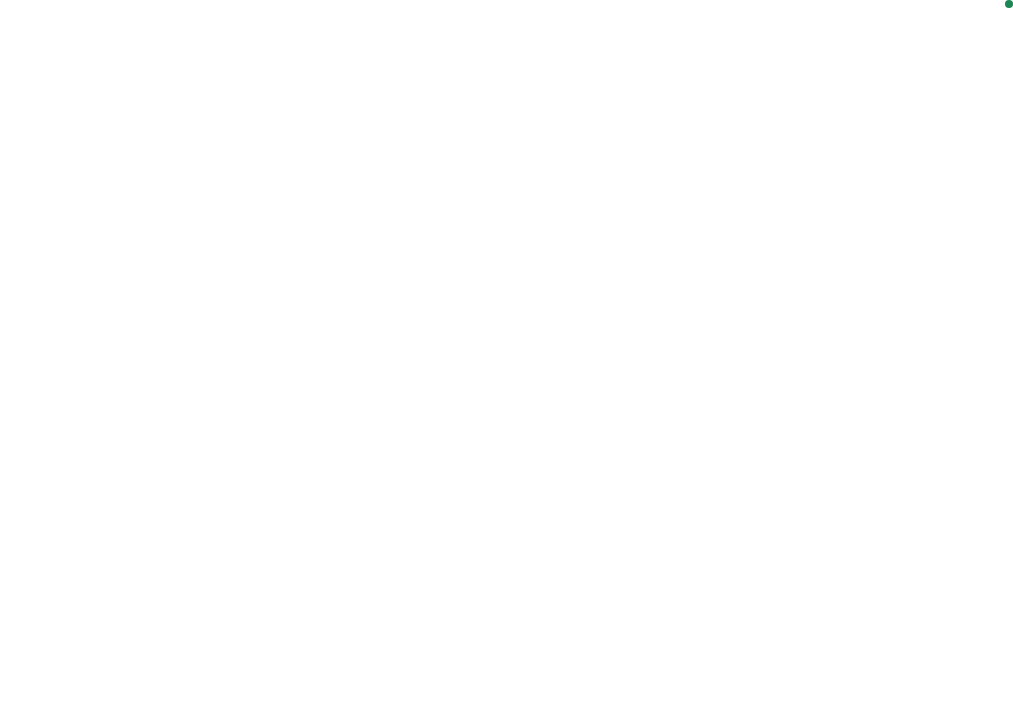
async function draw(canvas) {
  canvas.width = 1013
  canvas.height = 711
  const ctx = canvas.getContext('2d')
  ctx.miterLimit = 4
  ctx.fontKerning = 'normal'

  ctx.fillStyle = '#fff'
  ctx.fillRect(0, 0, 1013, 711)
  ctx.fillStyle = '#198754'
  ctx.beginPath()
  ctx.arc(1009, 4, 4, 0, 2 * Math.PI)
  ctx.fill()
}

draw(document.querySelector('canvas'))
